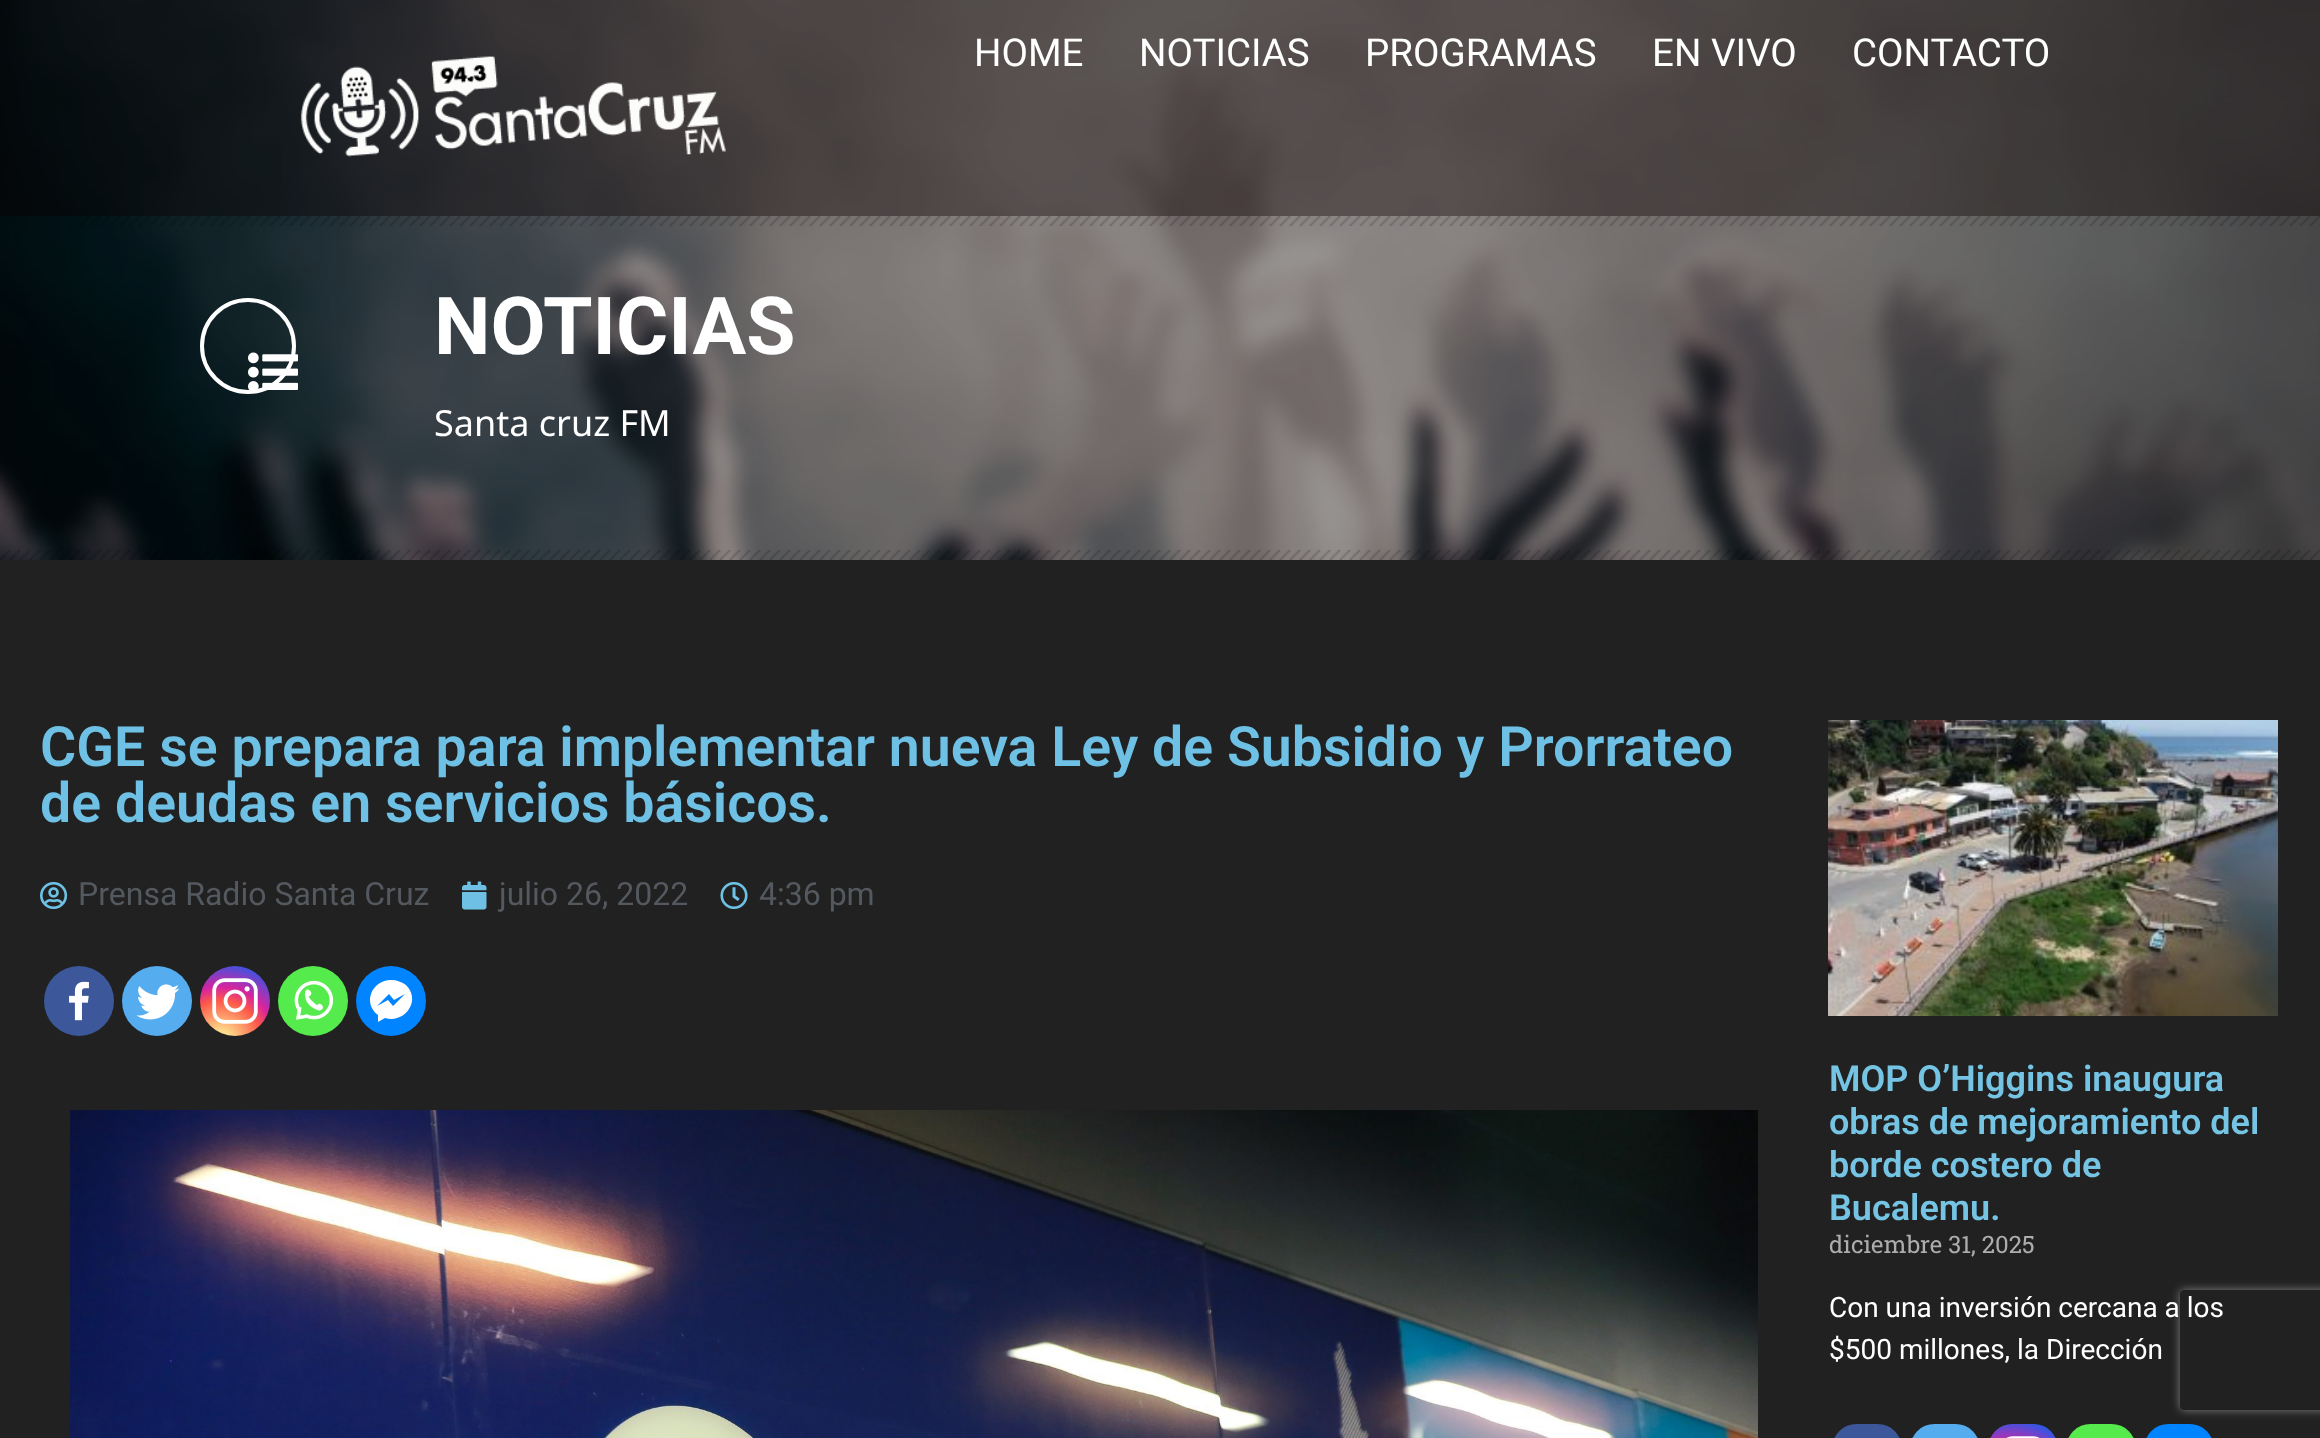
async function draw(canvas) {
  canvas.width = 2320
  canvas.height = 1438
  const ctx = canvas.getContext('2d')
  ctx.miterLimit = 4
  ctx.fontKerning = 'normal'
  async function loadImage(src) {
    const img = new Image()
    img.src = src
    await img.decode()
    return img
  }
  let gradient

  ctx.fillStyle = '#212121'
  ctx.fillRect(0, 0, 2320, 1438)
  ctx.drawImage(await loadImage('image2.png'), 0, 0, 2320, 560)
  ctx.fillStyle = '#0a000066'
  ctx.fillRect(0, 0, 2320, 216)
  ctx.font = '38.5px Roboto'
  ctx.fillStyle = '#fff'
  ctx.fillText('HOME', 974, 66)
  ctx.fillText('NOTICIAS', 1139, 66)
  ctx.fillText('PROGRAMAS', 1365, 66)
  ctx.fillText('EN VIVO', 1652, 66)
  ctx.fillText('CONTACTO', 1852, 66)
  ctx.drawImage(await loadImage('image0.png'), 300, 56, 426, 101)
  ctx.drawImage(await loadImage('image1.png'), 78, 216, 2242, 10)
  ctx.beginPath()
  ctx.arc(248, 346, 46, 0, 2 * Math.PI)
  ctx.strokeStyle = '#fff'
  ctx.lineWidth = 4
  ctx.stroke()
  ctx.drawImage(await loadImage('image3.png'), 248, 352, 50, 38)
  ctx.font = 'bold 80px Roboto'
  ctx.fillText('NOTICIAS', 434, 354)
  ctx.font = '36px Noto Sans'
  ctx.fillText('Santa cruz FM', 434, 436)
  ctx.drawImage(await loadImage('image4.png'), 0, 550, 2320, 10)
  ctx.font = '600 55.5px Roboto'
  ctx.fillStyle = '#6ec1e4'
  ctx.fillText('CGE se prepara para implementar nueva Ley de Subsidio y Prorrateo', 40, 766)
  ctx.fillText('de deudas en servicios básicos.', 40, 822)
  ctx.drawImage(await loadImage('image5.png'), 40, 881, 28, 29)
  ctx.font = '32px Roboto'
  ctx.fillStyle = '#54595f'
  ctx.fillText('Prensa Radio Santa Cruz', 78, 905)
  ctx.drawImage(await loadImage('image6.png'), 462, 881, 25, 29)
  ctx.fillText('julio 26, 2022', 499, 905)
  ctx.drawImage(await loadImage('image7.png'), 720, 882, 28, 27)
  ctx.fillText('4:36 pm', 759, 905)
  ctx.fillStyle = '#3c589a'
  ctx.beginPath()
  ctx.arc(79, 1001, 35, 0, 2 * Math.PI)
  ctx.fill()
  ctx.drawImage(await loadImage('image8.png'), 69, 981, 20, 40)
  ctx.fillStyle = '#55acee'
  ctx.beginPath()
  ctx.arc(157, 1001, 35, 0, 2 * Math.PI)
  ctx.fill()
  ctx.drawImage(await loadImage('image9.png'), 136, 984, 44, 36)
  gradient = ctx.createRadialGradient(221, 1041, 0, 221, 1041, 90)
  gradient.addColorStop(0, '#fdf497')
  gradient.addColorStop(0.05, '#fdf497')
  gradient.addColorStop(0.45, '#fd5949')
  gradient.addColorStop(0.6, '#d6249f')
  gradient.addColorStop(0.9, '#285aeb')
  ctx.fillStyle = gradient
  ctx.beginPath()
  ctx.arc(235, 1001, 35, 0, 2 * Math.PI)
  ctx.fill()
  ctx.drawImage(await loadImage('image10.png'), 212, 978, 46, 46)
  ctx.fillStyle = '#55eb4c'
  ctx.beginPath()
  ctx.arc(313, 1001, 35, 0, 2 * Math.PI)
  ctx.fill()
  ctx.drawImage(await loadImage('image11.png'), 294, 980, 40, 40)
  ctx.fillStyle = '#0084ff'
  ctx.beginPath()
  ctx.arc(391, 1001, 35, 0, 2 * Math.PI)
  ctx.fill()
  ctx.fillStyle = '#fff'
  ctx.beginPath()
  ctx.moveTo(391, 980)
  ctx.bezierCurveTo(372, 980, 362, 1003, 378, 1015)
  ctx.lineTo(378, 1022)
  ctx.lineTo(385, 1018)
  ctx.bezierCurveTo(404, 1024, 422, 1001, 406, 985)
  ctx.bezierCurveTo(402, 982, 397, 980, 391, 980)
  ctx.closePath()
  ctx.moveTo(393, 1006)
  ctx.lineTo(388, 1000)
  ctx.lineTo(377, 1006)
  ctx.lineTo(389, 994)
  ctx.lineTo(394, 1000)
  ctx.lineTo(405, 994)
  ctx.closePath()
  ctx.fill()
  ctx.drawImage(await loadImage('image12.png'), 70, 1110, 1688, 328)
  ctx.drawImage(await loadImage('image13.png'), 1828, 720, 450, 296)
  ctx.font = '600 36px Roboto'
  ctx.fillStyle = '#75c4e4'
  ctx.fillText('MOP O’Higgins inaugura', 1829, 1091)
  ctx.fillText('obras de mejoramiento del', 1829, 1134)
  ctx.fillText('borde costero de', 1829, 1177)
  ctx.fillText('Bucalemu.', 1829, 1220)
  ctx.font = '24px Roboto Slab'
  ctx.fillStyle = '#adadad'
  ctx.fillText('diciembre 31, 2025', 1829, 1253)
  ctx.save()
  ctx.beginPath()
  ctx.moveTo(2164, 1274)
  ctx.lineTo(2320, 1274)
  ctx.lineTo(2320, 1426)
  ctx.lineTo(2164, 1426)
  ctx.closePath()
  ctx.moveTo(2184, 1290)
  ctx.lineTo(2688, 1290)
  ctx.bezierCurveTo(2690, 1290, 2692, 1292, 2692, 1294)
  ctx.lineTo(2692, 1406)
  ctx.bezierCurveTo(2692, 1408, 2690, 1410, 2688, 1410)
  ctx.lineTo(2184, 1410)
  ctx.bezierCurveTo(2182, 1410, 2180, 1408, 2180, 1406)
  ctx.lineTo(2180, 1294)
  ctx.bezierCurveTo(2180, 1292, 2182, 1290, 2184, 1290)
  ctx.closePath()
  ctx.clip('evenodd')
  ctx.fillStyle = '#808080'
  ctx.filter = 'blur(5px)'
  ctx.beginPath()
  ctx.roundRect(2180, 1290, 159, 120, 4)
  ctx.fill()
  ctx.filter = 'none'
  ctx.restore()
  ctx.font = '28px Roboto'
  ctx.fillStyle = '#fff'
  ctx.fillText('Con una inversión cercana a los', 1829, 1317)
  ctx.fillText('$500 millones, la Dirección', 1829, 1359)
  ctx.fillStyle = '#3c589a'
  ctx.beginPath()
  ctx.roundRect(1832, 1424, 70, 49, 35)
  ctx.fill()
  ctx.fillStyle = '#55acee'
  ctx.beginPath()
  ctx.roundRect(1910, 1424, 70, 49, 35)
  ctx.fill()
  gradient = ctx.createRadialGradient(2009, 1499, 0, 2009, 1499, 90)
  gradient.addColorStop(0, '#fdf497')
  gradient.addColorStop(0.05, '#fdf497')
  gradient.addColorStop(0.45, '#fd5949')
  gradient.addColorStop(0.6, '#d6249f')
  gradient.addColorStop(0.9, '#285aeb')
  ctx.fillStyle = gradient
  ctx.beginPath()
  ctx.roundRect(1988, 1424, 70, 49, 35)
  ctx.fill()
  ctx.drawImage(await loadImage('image14.png'), 2006, 1436, 34, 2)
  ctx.fillStyle = '#55eb4c'
  ctx.beginPath()
  ctx.roundRect(2066, 1424, 70, 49, 35)
  ctx.fill()
  ctx.fillStyle = '#0084ff'
  ctx.beginPath()
  ctx.roundRect(2144, 1424, 70, 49, 35)
  ctx.fill()
}

draw(document.querySelector('canvas'))
